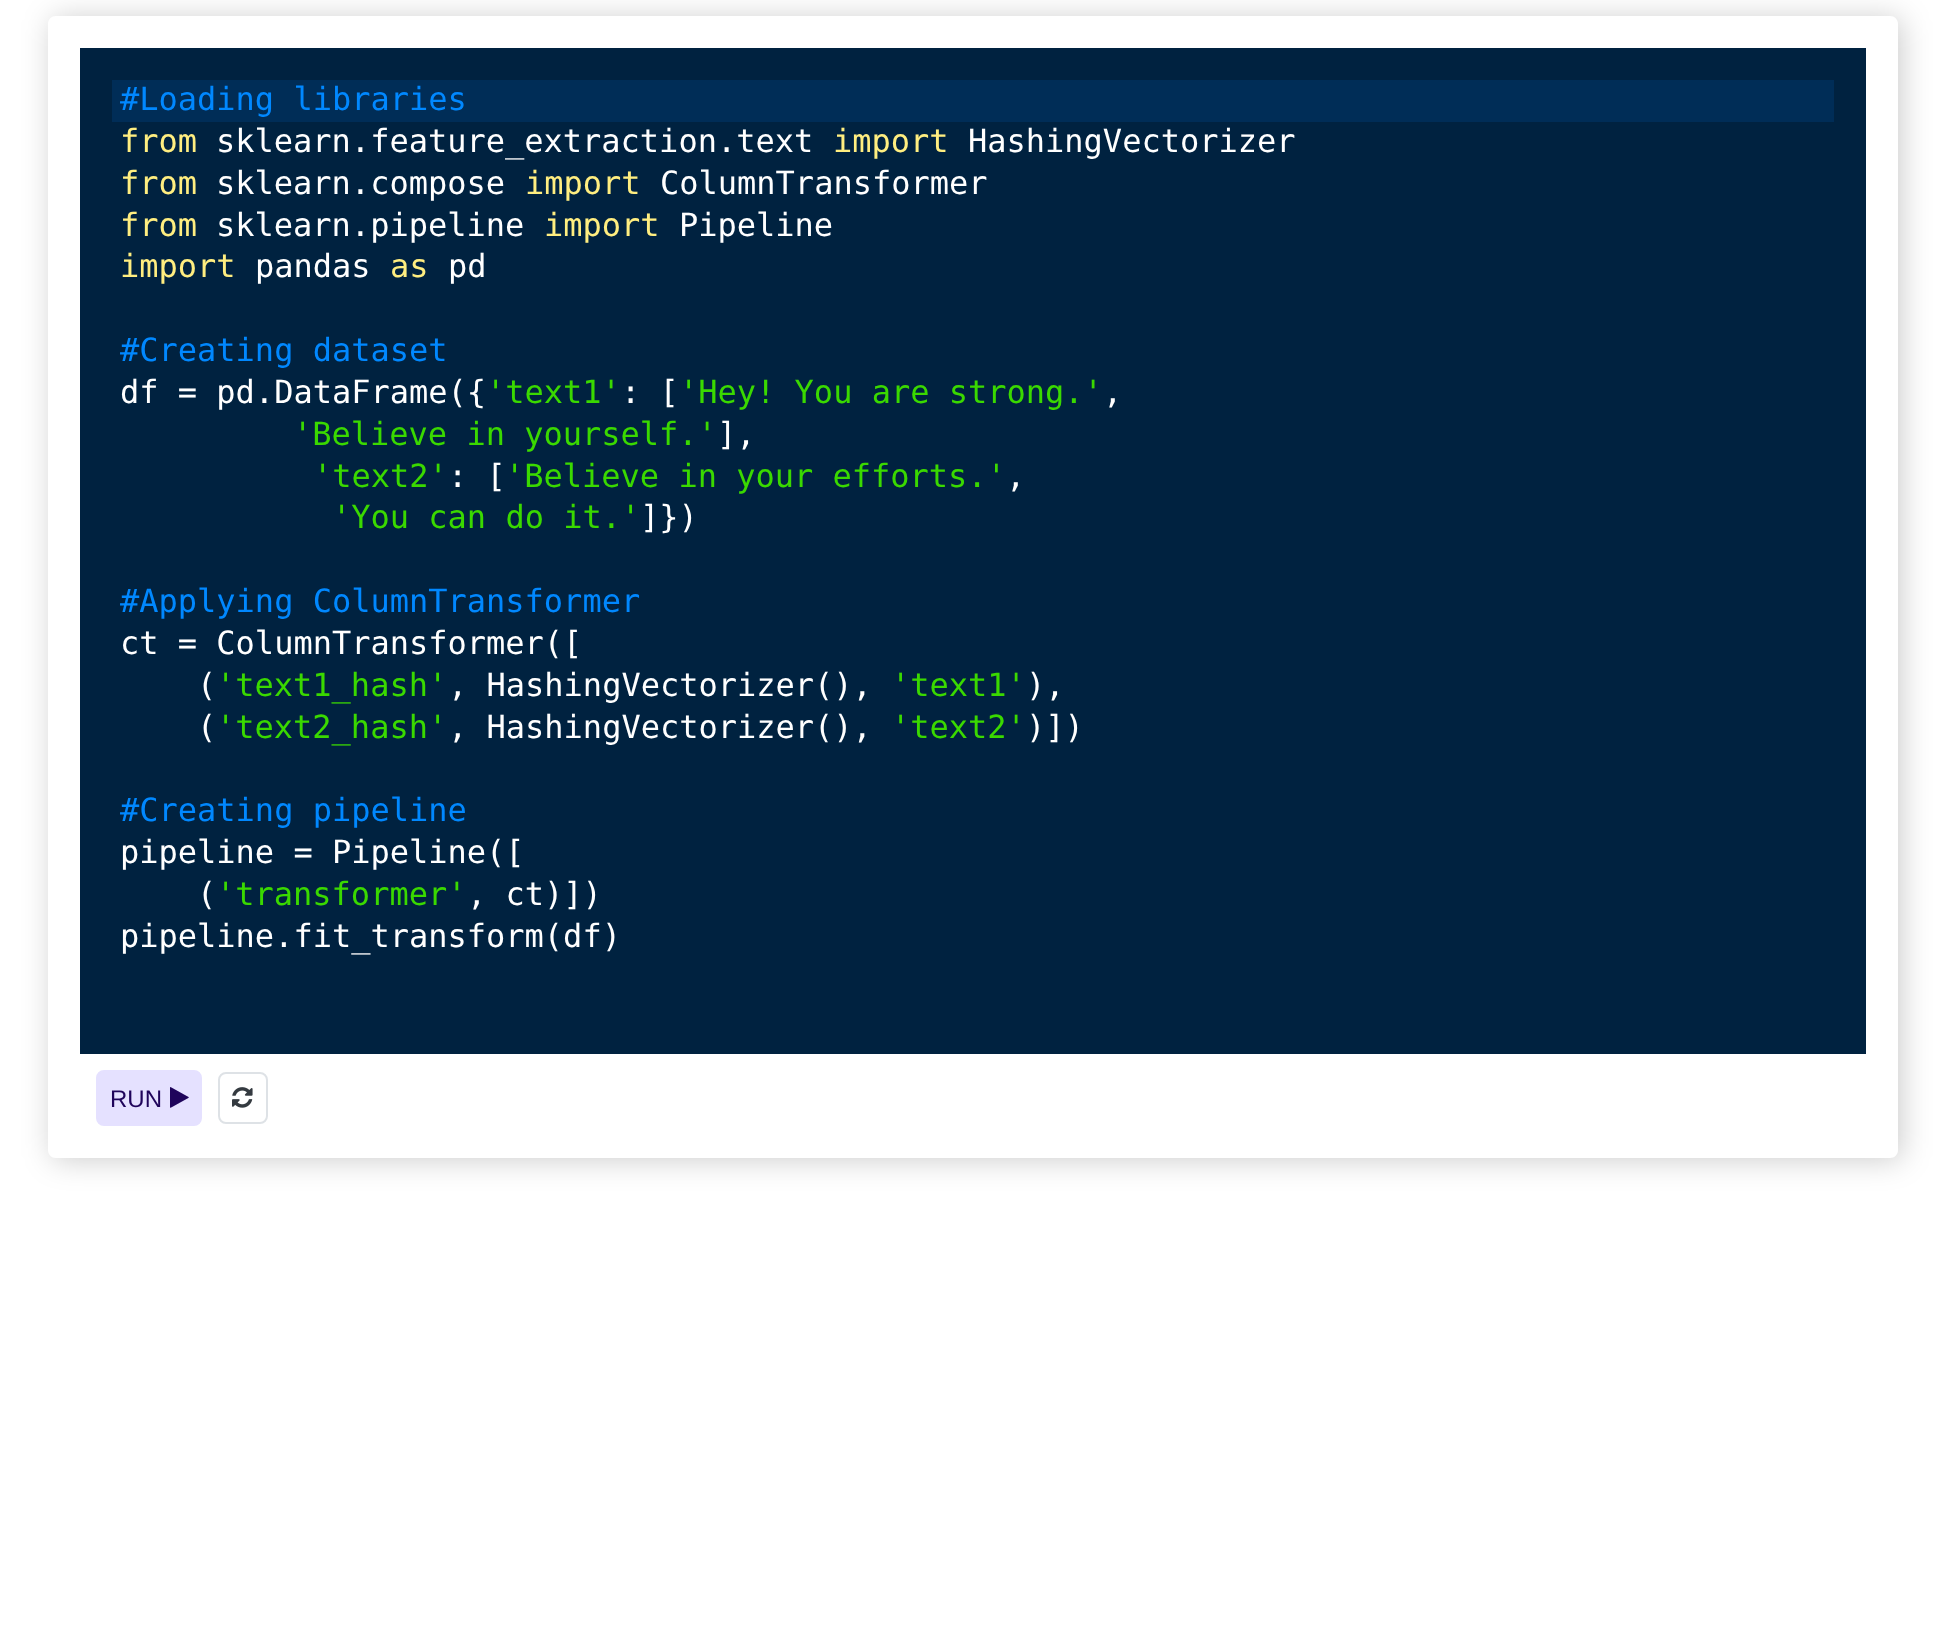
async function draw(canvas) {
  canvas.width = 1946
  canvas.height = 1630
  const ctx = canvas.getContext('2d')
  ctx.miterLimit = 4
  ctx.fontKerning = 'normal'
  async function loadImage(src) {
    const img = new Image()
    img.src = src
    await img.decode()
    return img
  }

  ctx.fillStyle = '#fff'
  ctx.fillRect(0, 0, 1946, 1630)
  ctx.save()
  ctx.beginPath()
  ctx.moveTo(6, 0)
  ctx.lineTo(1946, 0)
  ctx.lineTo(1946, 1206)
  ctx.lineTo(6, 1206)
  ctx.closePath()
  ctx.moveTo(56, 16)
  ctx.lineTo(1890, 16)
  ctx.bezierCurveTo(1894.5, 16, 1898, 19.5, 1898, 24)
  ctx.lineTo(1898, 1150)
  ctx.bezierCurveTo(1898, 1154.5, 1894.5, 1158, 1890, 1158)
  ctx.lineTo(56, 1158)
  ctx.bezierCurveTo(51.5, 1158, 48, 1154.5, 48, 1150)
  ctx.lineTo(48, 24)
  ctx.bezierCurveTo(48, 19.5, 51.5, 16, 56, 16)
  ctx.closePath()
  ctx.clip('evenodd')
  ctx.fillStyle = '#00000033'
  ctx.filter = 'blur(15px)'
  ctx.beginPath()
  ctx.roundRect(52, 18, 1850, 1142, 8)
  ctx.fill()
  ctx.filter = 'none'
  ctx.restore()
  ctx.fillStyle = '#002240'
  ctx.fillRect(80, 48, 1786, 1006)
  ctx.fillStyle = '#002d57'
  ctx.fillRect(112, 80, 1722, 42)
  ctx.font = '32px DejaVu Sans Mono'
  ctx.fillStyle = '#08f'
  ctx.fillText('#Loading libraries', 120, 110)
  ctx.fillStyle = '#ffee80'
  ctx.fillText('from', 120, 152)
  ctx.fillStyle = '#fff'
  ctx.fillText('sklearn.feature_extraction.text', 216, 152)
  ctx.fillStyle = '#ffee80'
  ctx.fillText('import', 833, 152)
  ctx.fillStyle = '#fff'
  ctx.fillText('HashingVectorizer', 968, 152)
  ctx.fillStyle = '#ffee80'
  ctx.fillText('from', 120, 194)
  ctx.fillStyle = '#fff'
  ctx.fillText('sklearn.compose', 216, 194)
  ctx.fillStyle = '#ffee80'
  ctx.fillText('import', 525, 194)
  ctx.fillStyle = '#fff'
  ctx.fillText('ColumnTransformer', 660, 194)
  ctx.fillStyle = '#ffee80'
  ctx.fillText('from', 120, 236)
  ctx.fillStyle = '#fff'
  ctx.fillText('sklearn.pipeline', 216, 236)
  ctx.fillStyle = '#ffee80'
  ctx.fillText('import', 544, 236)
  ctx.fillStyle = '#fff'
  ctx.fillText('Pipeline', 679, 236)
  ctx.fillStyle = '#ffee80'
  ctx.fillText('import', 120, 277)
  ctx.fillStyle = '#fff'
  ctx.fillText('pandas', 255, 277)
  ctx.fillStyle = '#ffee80'
  ctx.fillText('as', 390, 277)
  ctx.fillStyle = '#fff'
  ctx.fillText('pd', 448, 277)
  ctx.fillStyle = '#08f'
  ctx.fillText('#Creating dataset', 120, 361)
  ctx.fillStyle = '#fff'
  ctx.fillText('df = pd.DataFrame({', 120, 403)
  ctx.fillStyle = '#3ad900'
  ctx.fillText('\'text1\'', 486, 403)
  ctx.fillStyle = '#fff'
  ctx.fillText(': [', 621, 403)
  ctx.fillStyle = '#3ad900'
  ctx.fillText('\'Hey! You are strong.\'', 679, 403)
  ctx.fillStyle = '#fff'
  ctx.fillText(',', 1103, 403)
  ctx.fillStyle = '#3ad900'
  ctx.fillText('\'Believe in yourself.\'', 293, 445)
  ctx.fillStyle = '#fff'
  ctx.fillText('],', 717, 445)
  ctx.fillStyle = '#3ad900'
  ctx.fillText('\'text2\'', 313, 487)
  ctx.fillStyle = '#fff'
  ctx.fillText(': [', 448, 487)
  ctx.fillStyle = '#3ad900'
  ctx.fillText('\'Believe in your efforts.\'', 505, 487)
  ctx.fillStyle = '#fff'
  ctx.fillText(',', 1006, 487)
  ctx.fillStyle = '#3ad900'
  ctx.fillText('\'You can do it.\'', 332, 528)
  ctx.fillStyle = '#fff'
  ctx.fillText(']})', 640, 528)
  ctx.fillStyle = '#08f'
  ctx.fillText('#Applying ColumnTransformer', 120, 612)
  ctx.fillStyle = '#fff'
  ctx.fillText('ct = ColumnTransformer([', 120, 654)
  ctx.fillText('(', 197, 696)
  ctx.fillStyle = '#3ad900'
  ctx.fillText('\'text1_hash\'', 216, 696)
  ctx.fillStyle = '#fff'
  ctx.fillText(', HashingVectorizer(),', 448, 696)
  ctx.fillStyle = '#3ad900'
  ctx.fillText('\'text1\'', 891, 696)
  ctx.fillStyle = '#fff'
  ctx.fillText('),', 1026, 696)
  ctx.fillText('(', 197, 738)
  ctx.fillStyle = '#3ad900'
  ctx.fillText('\'text2_hash\'', 216, 738)
  ctx.fillStyle = '#fff'
  ctx.fillText(', HashingVectorizer(),', 448, 738)
  ctx.fillStyle = '#3ad900'
  ctx.fillText('\'text2\'', 891, 738)
  ctx.fillStyle = '#fff'
  ctx.fillText(')])', 1026, 738)
  ctx.fillStyle = '#08f'
  ctx.fillText('#Creating pipeline', 120, 821)
  ctx.fillStyle = '#fff'
  ctx.fillText('pipeline = Pipeline([', 120, 863)
  ctx.fillText('(', 197, 905)
  ctx.fillStyle = '#3ad900'
  ctx.fillText('\'transformer\'', 216, 905)
  ctx.fillStyle = '#fff'
  ctx.fillText(', ct)])', 467, 905)
  ctx.fillText('pipeline.fit_transform(df)', 120, 947)
  ctx.fillStyle = '#e5e1ff'
  ctx.beginPath()
  ctx.roundRect(97, 1071, 104, 54, 7)
  ctx.fill()
  ctx.strokeStyle = '#e5e1ff'
  ctx.lineWidth = 2
  ctx.stroke()
  ctx.font = '24px Liberation Sans'
  ctx.fillStyle = '#1f045b'
  ctx.fillText('RUN', 110, 1107)
  ctx.drawImage(await loadImage('image0.png'), 170, 1087, 19, 21)
  ctx.beginPath()
  ctx.roundRect(219, 1073, 48, 50, 7)
  ctx.strokeStyle = '#dee2e6'
  ctx.stroke()
  ctx.drawImage(await loadImage('image1.png'), 232, 1087, 21, 21)
}

draw(document.querySelector('canvas'))
